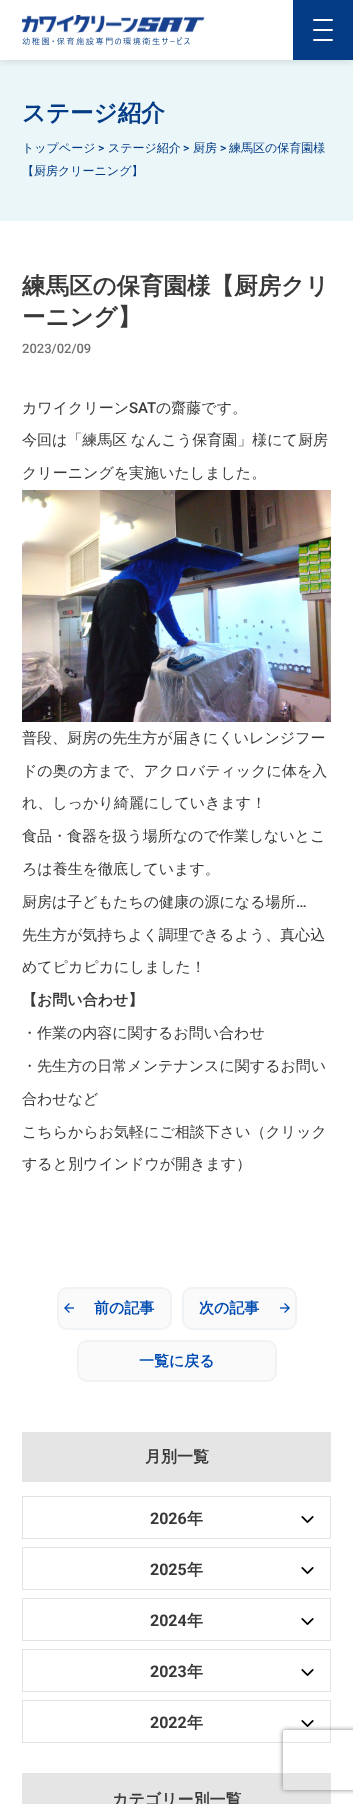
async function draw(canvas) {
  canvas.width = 353
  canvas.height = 1804
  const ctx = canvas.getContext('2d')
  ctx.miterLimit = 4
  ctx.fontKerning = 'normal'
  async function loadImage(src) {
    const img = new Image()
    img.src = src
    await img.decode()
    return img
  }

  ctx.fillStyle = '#fff'
  ctx.fillRect(0, 0, 353, 1804)
  ctx.fillStyle = '#eaf6f8'
  ctx.fillRect(0, 60, 353, 161)
  ctx.save()
  ctx.beginPath()
  ctx.rect(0, 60, 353, 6)
  ctx.clip()
  ctx.fillStyle = '#00000029'
  ctx.filter = 'blur(5px)'
  ctx.beginPath()
  ctx.rect(0, 0, 353, 60)
  ctx.fill()
  ctx.filter = 'none'
  ctx.restore()
  ctx.drawImage(await loadImage('image0.png'), 22, 15, 183, 30)
  ctx.fillStyle = '#043b85'
  ctx.fillRect(293, 0, 60, 60)
  ctx.fillStyle = '#fff'
  ctx.beginPath()
  ctx.roundRect(313, 19, 20, 2, 1)
  ctx.fill()
  ctx.beginPath()
  ctx.roundRect(313, 29, 20, 2, 1)
  ctx.fill()
  ctx.beginPath()
  ctx.roundRect(313, 39, 20, 2, 1)
  ctx.fill()
  ctx.font = 'bold 23.5px WenQuanYi Zen Hei'
  ctx.fillStyle = '#043b85'
  ctx.fillText('ステージ紹介', 22, 121)
  ctx.font = '500 12px WenQuanYi Zen Hei'
  ctx.fillText('トップページ', 22, 152)
  ctx.font = '500 12px Roboto'
  ctx.fillText('>', 98, 152)
  ctx.font = '500 12px WenQuanYi Zen Hei'
  ctx.fillText('ステージ紹介', 108, 152)
  ctx.font = '500 12px Roboto'
  ctx.fillText('>', 183, 152)
  ctx.font = '500 12px WenQuanYi Zen Hei'
  ctx.fillText('厨房', 193, 152)
  ctx.font = '500 12px Roboto'
  ctx.fillText('>', 220, 152)
  ctx.font = '500 12px WenQuanYi Zen Hei'
  ctx.fillText('練馬区の保育園様', 229, 152)
  ctx.fillText('【厨房クリーニング】', 22, 175)
  ctx.font = 'bold 23.5px WenQuanYi Zen Hei'
  ctx.fillStyle = '#393939'
  ctx.fillText('練馬区の保育園様【厨房クリ', 22, 294)
  ctx.fillText('ーニング】', 22, 325)
  ctx.font = '500 13px Roboto'
  ctx.fillStyle = '#707070'
  ctx.fillText('2023/02/09', 22, 353)
  ctx.font = '500 15px WenQuanYi Zen Hei'
  ctx.fillStyle = '#393939'
  ctx.fillText('カワイクリーン', 22, 413)
  ctx.font = '500 15px Roboto'
  ctx.fillText('SAT', 129, 413)
  ctx.font = '500 15px WenQuanYi Zen Hei'
  ctx.fillText('の齋藤です。', 156, 413)
  ctx.wordSpacing = '-1px'
  ctx.fillText('今回は「練馬区 なんこう保育園」様にて厨房', 22, 445)
  ctx.wordSpacing = '0px'
  ctx.fillText('クリーニングを実施いたしました。', 22, 478)
  ctx.drawImage(await loadImage('image1.png'), 22, 490, 309, 232)
  ctx.fillText('普段、厨房の先生方が届きにくいレンジフー', 22, 743)
  ctx.fillText('ドの奥の方まで、アクロバティックに体を入', 22, 776)
  ctx.fillText('れ、しっかり綺麗にしていきます！', 22, 808)
  ctx.fillText('食品・食器を扱う場所なので作業しないとこ', 22, 841)
  ctx.fillText('ろは養生を徹底しています。', 22, 874)
  ctx.fillText('厨房は子どもたちの健康の源になる場所', 22, 907)
  ctx.font = '500 15px Roboto'
  ctx.fillText('…', 296, 907)
  ctx.font = '500 15px WenQuanYi Zen Hei'
  ctx.fillText('先生方が気持ちよく調理できるよう、真心込', 22, 940)
  ctx.fillText('めてピカピカにしました！', 22, 972)
  ctx.font = 'bold 15px WenQuanYi Zen Hei'
  ctx.fillText('【お問い合わせ】', 22, 1005)
  ctx.font = '500 15px WenQuanYi Zen Hei'
  ctx.fillText('・作業の内容に関するお問い合わせ', 22, 1038)
  ctx.fillText('・先生方の日常メンテナンスに関するお問い', 22, 1071)
  ctx.fillText('合わせなど', 22, 1104)
  ctx.fillText('こちらからお気軽にご相談下さい（クリック', 22, 1137)
  ctx.fillText('すると別ウインドウが開きます）', 22, 1169)
  ctx.fillStyle = '#fafafa'
  ctx.beginPath()
  ctx.roundRect(58, 1288, 113, 41, 9)
  ctx.fill()
  ctx.strokeStyle = '#f0f3f5'
  ctx.lineWidth = 2
  ctx.stroke()
  ctx.drawImage(await loadImage('image2.png'), 64, 1303, 10, 10)
  ctx.font = 'bold 15px WenQuanYi Zen Hei'
  ctx.fillStyle = '#004bb1'
  ctx.fillText('前の記事', 94, 1313)
  ctx.fillStyle = '#fafafa'
  ctx.beginPath()
  ctx.roundRect(183, 1288, 113, 41, 9)
  ctx.fill()
  ctx.stroke()
  ctx.fillStyle = '#004bb1'
  ctx.fillText('次の記事', 199, 1313)
  ctx.drawImage(await loadImage('image3.png'), 280, 1303, 10, 10)
  ctx.fillStyle = '#fafafa'
  ctx.beginPath()
  ctx.roundRect(78, 1341, 198, 40, 9)
  ctx.fill()
  ctx.stroke()
  ctx.fillStyle = '#004bb1'
  ctx.fillText('一覧に戻る', 139, 1366)
  ctx.fillStyle = '#e5e5e5'
  ctx.fillRect(22, 1432, 309, 50)
  ctx.font = 'bold 16px WenQuanYi Zen Hei'
  ctx.fillStyle = '#393939'
  ctx.fillText('月別一覧', 145, 1462)
  ctx.strokeStyle = '#e3e3e3'
  ctx.lineWidth = 1
  ctx.strokeRect(22.5, 1496.5, 308, 42)
  ctx.font = 'bold 16px Roboto'
  ctx.fillText('2026', 150, 1524)
  ctx.font = 'bold 16px WenQuanYi Zen Hei'
  ctx.fillText('年', 187, 1524)
  ctx.drawImage(await loadImage('image4.png'), 301, 1516, 13, 7)
  ctx.strokeRect(22.5, 1547.5, 308, 42)
  ctx.font = 'bold 16px Roboto'
  ctx.fillText('2025', 150, 1575)
  ctx.font = 'bold 16px WenQuanYi Zen Hei'
  ctx.fillText('年', 187, 1575)
  ctx.drawImage(await loadImage('image4.png'), 301, 1567, 13, 7)
  ctx.strokeRect(22.5, 1598.5, 308, 42)
  ctx.font = 'bold 16px Roboto'
  ctx.fillText('2024', 150, 1626)
  ctx.font = 'bold 16px WenQuanYi Zen Hei'
  ctx.fillText('年', 187, 1626)
  ctx.drawImage(await loadImage('image4.png'), 301, 1618, 13, 7)
  ctx.strokeRect(22.5, 1649.5, 308, 42)
  ctx.font = 'bold 16px Roboto'
  ctx.fillText('2023', 150, 1677)
  ctx.font = 'bold 16px WenQuanYi Zen Hei'
  ctx.fillText('年', 187, 1677)
  ctx.drawImage(await loadImage('image4.png'), 301, 1669, 13, 7)
  ctx.strokeRect(22.5, 1700.5, 308, 42)
  ctx.font = 'bold 16px Roboto'
  ctx.fillText('2022', 150, 1728)
  ctx.font = 'bold 16px WenQuanYi Zen Hei'
  ctx.fillText('年', 187, 1728)
  ctx.drawImage(await loadImage('image4.png'), 301, 1720, 13, 7)
  ctx.fillStyle = '#e5e5e5'
  ctx.fillRect(22, 1773, 309, 31)
  ctx.fillStyle = '#393939'
  ctx.fillText('カテゴリー別一覧', 112, 1805)
  ctx.save()
  ctx.beginPath()
  ctx.moveTo(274, 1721)
  ctx.lineTo(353, 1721)
  ctx.lineTo(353, 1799)
  ctx.lineTo(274, 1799)
  ctx.closePath()
  ctx.moveTo(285, 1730)
  ctx.lineTo(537, 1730)
  ctx.bezierCurveTo(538, 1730, 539, 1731, 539, 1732)
  ctx.lineTo(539, 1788)
  ctx.bezierCurveTo(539, 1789, 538, 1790, 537, 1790)
  ctx.lineTo(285, 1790)
  ctx.bezierCurveTo(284, 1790, 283, 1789, 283, 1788)
  ctx.lineTo(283, 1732)
  ctx.bezierCurveTo(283, 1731, 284, 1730, 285, 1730)
  ctx.closePath()
  ctx.clip('evenodd')
  ctx.fillStyle = '#808080'
  ctx.filter = 'blur(2.5px)'
  ctx.beginPath()
  ctx.roundRect(283, 1730, 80, 60, 2)
  ctx.fill()
  ctx.filter = 'none'
  ctx.restore()
}

draw(document.querySelector('canvas'))
